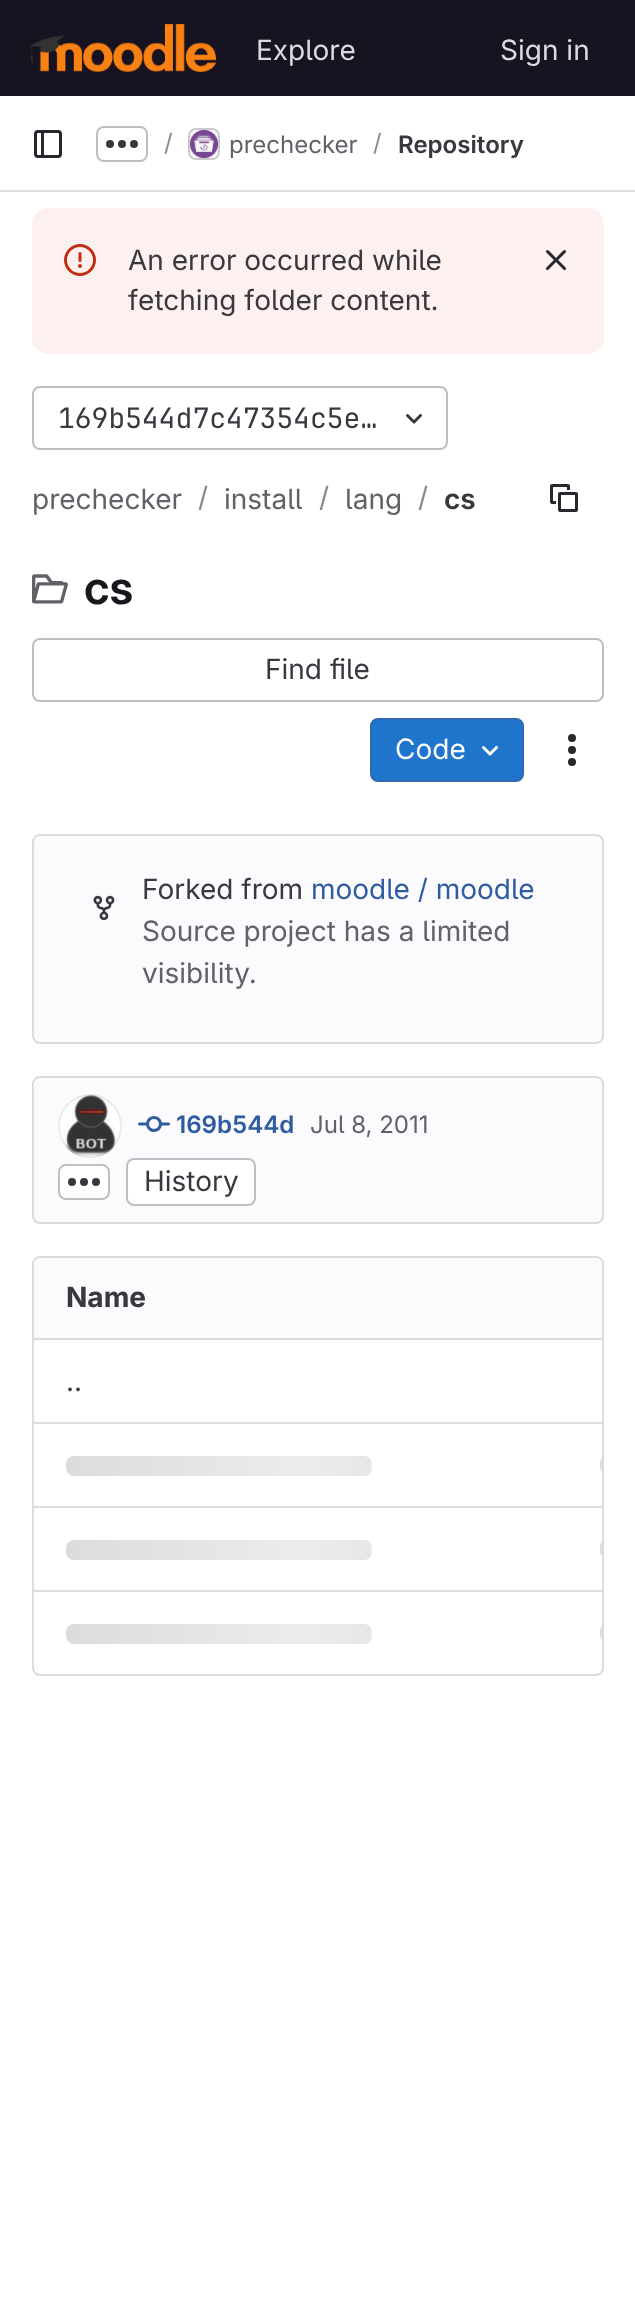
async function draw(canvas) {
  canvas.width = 635
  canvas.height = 2303
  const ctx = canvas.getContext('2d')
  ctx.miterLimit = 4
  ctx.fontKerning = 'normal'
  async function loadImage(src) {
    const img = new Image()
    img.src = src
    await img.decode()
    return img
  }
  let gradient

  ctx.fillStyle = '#fff'
  ctx.fillRect(0, 0, 635, 2303)
  ctx.fillStyle = '#171321'
  ctx.fillRect(0, 0, 635, 96)
  ctx.drawImage(await loadImage('image0.png'), 30, 24, 186, 48)
  ctx.font = '28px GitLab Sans'
  ctx.fillStyle = '#dcdcde'
  ctx.fillText('Explore', 256, 60)
  ctx.fillText('Sign in', 500, 60)
  ctx.fillRect(0, 190, 635, 2)
  ctx.drawImage(await loadImage('image1.png'), 34, 130, 28, 28)
  ctx.beginPath()
  ctx.roundRect(97, 127, 50, 34, 7)
  ctx.strokeStyle = '#bfbfc3'
  ctx.lineWidth = 2
  ctx.stroke()
  ctx.drawImage(await loadImage('image2.png'), 106, 140, 32, 8)
  ctx.font = '24px GitLab Sans'
  ctx.fillStyle = '#89888d'
  ctx.fillText('/', 164, 151)
  ctx.beginPath()
  ctx.roundRect(189, 129, 30, 30, 7)
  ctx.strokeStyle = '#dcdcde'
  ctx.stroke()
  ctx.drawImage(await loadImage('image3.png'), 190, 130, 28, 28)
  ctx.beginPath()
  ctx.roundRect(189, 129, 30, 30, 7)
  ctx.strokeStyle = '#05050614'
  ctx.stroke()
  ctx.fillStyle = '#626168'
  ctx.fillText('prechecker', 229, 153)
  ctx.fillStyle = '#89888d'
  ctx.fillText('/', 373, 151)
  ctx.font = '600 24px "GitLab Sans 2"'
  ctx.fillStyle = '#3a383f'
  ctx.fillText('Repository', 398, 153)
  ctx.fillStyle = '#fcf1ef'
  ctx.beginPath()
  ctx.roundRect(32, 208, 572, 146, 16)
  ctx.fill()
  ctx.drawImage(await loadImage('image4.png'), 64, 244, 32, 32)
  ctx.font = '28px GitLab Sans'
  ctx.fillStyle = '#3a383f'
  ctx.fillText('An error occurred while', 128, 270)
  ctx.fillText('fetching folder content.', 128, 310)
  ctx.drawImage(await loadImage('image5.png'), 545, 250, 22, 21)
  ctx.beginPath()
  ctx.roundRect(33, 387, 414, 62, 7)
  ctx.strokeStyle = '#bfbfc3'
  ctx.stroke()
  ctx.font = '28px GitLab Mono'
  ctx.fillText('169b544d7c47354c5e…', 58, 428)
  ctx.drawImage(await loadImage('image6.png'), 406, 413, 17, 11)
  ctx.font = '28px GitLab Sans'
  ctx.fillStyle = '#626168'
  ctx.fillText('prechecker', 32, 509)
  ctx.fillStyle = '#89888d'
  ctx.fillText('/', 198, 507)
  ctx.fillStyle = '#626168'
  ctx.fillText('install', 224, 509)
  ctx.fillStyle = '#89888d'
  ctx.fillText('/', 319, 507)
  ctx.fillStyle = '#626168'
  ctx.fillText('lang', 345, 509)
  ctx.fillStyle = '#89888d'
  ctx.fillText('/', 418, 507)
  ctx.font = '600 28px "GitLab Sans 2"'
  ctx.fillStyle = '#3a383f'
  ctx.fillText('cs', 444, 509)
  ctx.drawImage(await loadImage('image7.png'), 550, 484, 28, 28)
  ctx.drawImage(await loadImage('image8.png'), 32, 574, 36, 30)
  ctx.font = '600 46px GitLab Sans'
  ctx.fillStyle = '#18171d'
  ctx.fillText('cs', 84, 604)
  ctx.beginPath()
  ctx.roundRect(33, 639, 570, 62, 7)
  ctx.stroke()
  ctx.font = '28px GitLab Sans'
  ctx.fillStyle = '#3a383f'
  ctx.fillText('Find file', 265, 679)
  ctx.fillStyle = '#1f75cb'
  ctx.beginPath()
  ctx.roundRect(371, 719, 152, 62, 7)
  ctx.fill()
  ctx.strokeStyle = '#2f68b4'
  ctx.stroke()
  ctx.fillStyle = '#fff'
  ctx.fillText('Code', 395, 759)
  ctx.drawImage(await loadImage('image9.png'), 482, 745, 17, 11)
  ctx.drawImage(await loadImage('image10.png'), 568, 734, 8, 32)
  ctx.fillStyle = '#fbfafd'
  ctx.beginPath()
  ctx.roundRect(33, 835, 570, 208, 7)
  ctx.fill()
  ctx.strokeStyle = '#dcdcde'
  ctx.stroke()
  ctx.drawImage(await loadImage('image11.png'), 93, 895, 22, 26)
  ctx.fillStyle = '#3a383f'
  ctx.fillText('Forked from', 142, 899)
  ctx.fillStyle = '#2f5ca0'
  ctx.fillText('moodle / moodle', 311, 899)
  ctx.fillStyle = '#626168'
  ctx.fillText('Source project has a limited', 142, 941)
  ctx.fillText('visibility.', 142, 983)
  ctx.fillStyle = '#fbfafd'
  ctx.beginPath()
  ctx.roundRect(33, 1077, 570, 146, 7)
  ctx.fill()
  ctx.stroke()
  ctx.drawImage(await loadImage('image12.png'), 58, 1094, 64, 62)
  ctx.beginPath()
  ctx.arc(90, 1126, 31, 0, 2 * Math.PI)
  ctx.strokeStyle = '#05050614'
  ctx.stroke()
  ctx.drawImage(await loadImage('image13.png'), 138, 1116, 32, 16)
  ctx.font = '600 24px "GitLab Sans 2"'
  ctx.fillStyle = '#2f5ca0'
  ctx.fillText('169b544d', 176, 1133)
  ctx.font = '24px GitLab Sans'
  ctx.fillStyle = '#626168'
  ctx.fillText('Jul 8, 2011', 310, 1133)
  ctx.fillStyle = '#fff'
  ctx.beginPath()
  ctx.roundRect(59, 1165, 50, 34, 7)
  ctx.fill()
  ctx.strokeStyle = '#bfbfc3'
  ctx.stroke()
  ctx.drawImage(await loadImage('image2.png'), 68, 1178, 32, 8)
  ctx.beginPath()
  ctx.roundRect(127, 1159, 128, 46, 7)
  ctx.fill()
  ctx.stroke()
  ctx.font = '28px GitLab Sans'
  ctx.fillStyle = '#3a383f'
  ctx.fillText('History', 144, 1191)
  ctx.beginPath()
  ctx.roundRect(33, 1257, 570, 418, 7)
  ctx.strokeStyle = '#dcdcde'
  ctx.stroke()
  ctx.fillStyle = '#fbfafd'
  ctx.beginPath()
  ctx.roundRect(34, 1258, 534, 80, [6, 0, 0, 0])
  ctx.fill()
  ctx.font = 'bold 28px GitLab Sans'
  ctx.fillStyle = '#3a383f'
  ctx.fillText('Name', 66, 1307)
  ctx.fillStyle = '#fbfafd'
  ctx.beginPath()
  ctx.roundRect(568, 1258, 34, 80, [0, 6, 0, 0])
  ctx.fill()
  ctx.fillStyle = '#dcdcde'
  ctx.fillRect(34, 1422, 568, 2)
  ctx.fillRect(34, 1338, 568, 2)
  ctx.font = '28px GitLab Sans'
  ctx.fillStyle = '#3a383f'
  ctx.fillText('..', 66, 1391)
  ctx.fillStyle = '#dcdcde'
  ctx.fillRect(34, 1506, 568, 2)
  gradient = ctx.createLinearGradient(66, 1456, 536, 1456)
  gradient.addColorStop(0, '#dcdcde')
  gradient.addColorStop(0.5, '#ececef')
  gradient.addColorStop(1, '#dcdcde')
  ctx.fillStyle = gradient
  ctx.beginPath()
  ctx.roundRect(66, 1456, 306, 20, 8)
  ctx.fill()
  ctx.save()
  ctx.beginPath()
  ctx.roundRect(600, 1455, 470, 20, 8)
  ctx.clip()
  gradient = ctx.createLinearGradient(600, 1455, 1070, 1455)
  gradient.addColorStop(0, '#dcdcde')
  gradient.addColorStop(0.5, '#ececef')
  gradient.addColorStop(1, '#dcdcde')
  ctx.fillStyle = gradient
  ctx.fillRect(600, 1455, 2, 20)
  ctx.restore()
  ctx.fillStyle = '#dcdcde'
  ctx.fillRect(34, 1590, 568, 2)
  gradient = ctx.createLinearGradient(66, 1540, 536, 1540)
  gradient.addColorStop(0, '#dcdcde')
  gradient.addColorStop(0.5, '#ececef')
  gradient.addColorStop(1, '#dcdcde')
  ctx.fillStyle = gradient
  ctx.beginPath()
  ctx.roundRect(66, 1540, 306, 20, 8)
  ctx.fill()
  ctx.save()
  ctx.beginPath()
  ctx.roundRect(600, 1539, 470, 20, 8)
  ctx.clip()
  gradient = ctx.createLinearGradient(600, 1539, 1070, 1539)
  gradient.addColorStop(0, '#dcdcde')
  gradient.addColorStop(0.5, '#ececef')
  gradient.addColorStop(1, '#dcdcde')
  ctx.fillStyle = gradient
  ctx.fillRect(600, 1539, 2, 20)
  ctx.restore()
  gradient = ctx.createLinearGradient(66, 1624, 536, 1624)
  gradient.addColorStop(0, '#dcdcde')
  gradient.addColorStop(0.5, '#ececef')
  gradient.addColorStop(1, '#dcdcde')
  ctx.fillStyle = gradient
  ctx.beginPath()
  ctx.roundRect(66, 1624, 306, 20, 8)
  ctx.fill()
  ctx.save()
  ctx.beginPath()
  ctx.roundRect(600, 1623, 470, 20, 8)
  ctx.clip()
  gradient = ctx.createLinearGradient(600, 1623, 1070, 1623)
  gradient.addColorStop(0, '#dcdcde')
  gradient.addColorStop(0.5, '#ececef')
  gradient.addColorStop(1, '#dcdcde')
  ctx.fillStyle = gradient
  ctx.fillRect(600, 1623, 2, 20)
  ctx.restore()
}

draw(document.querySelector('canvas'))
